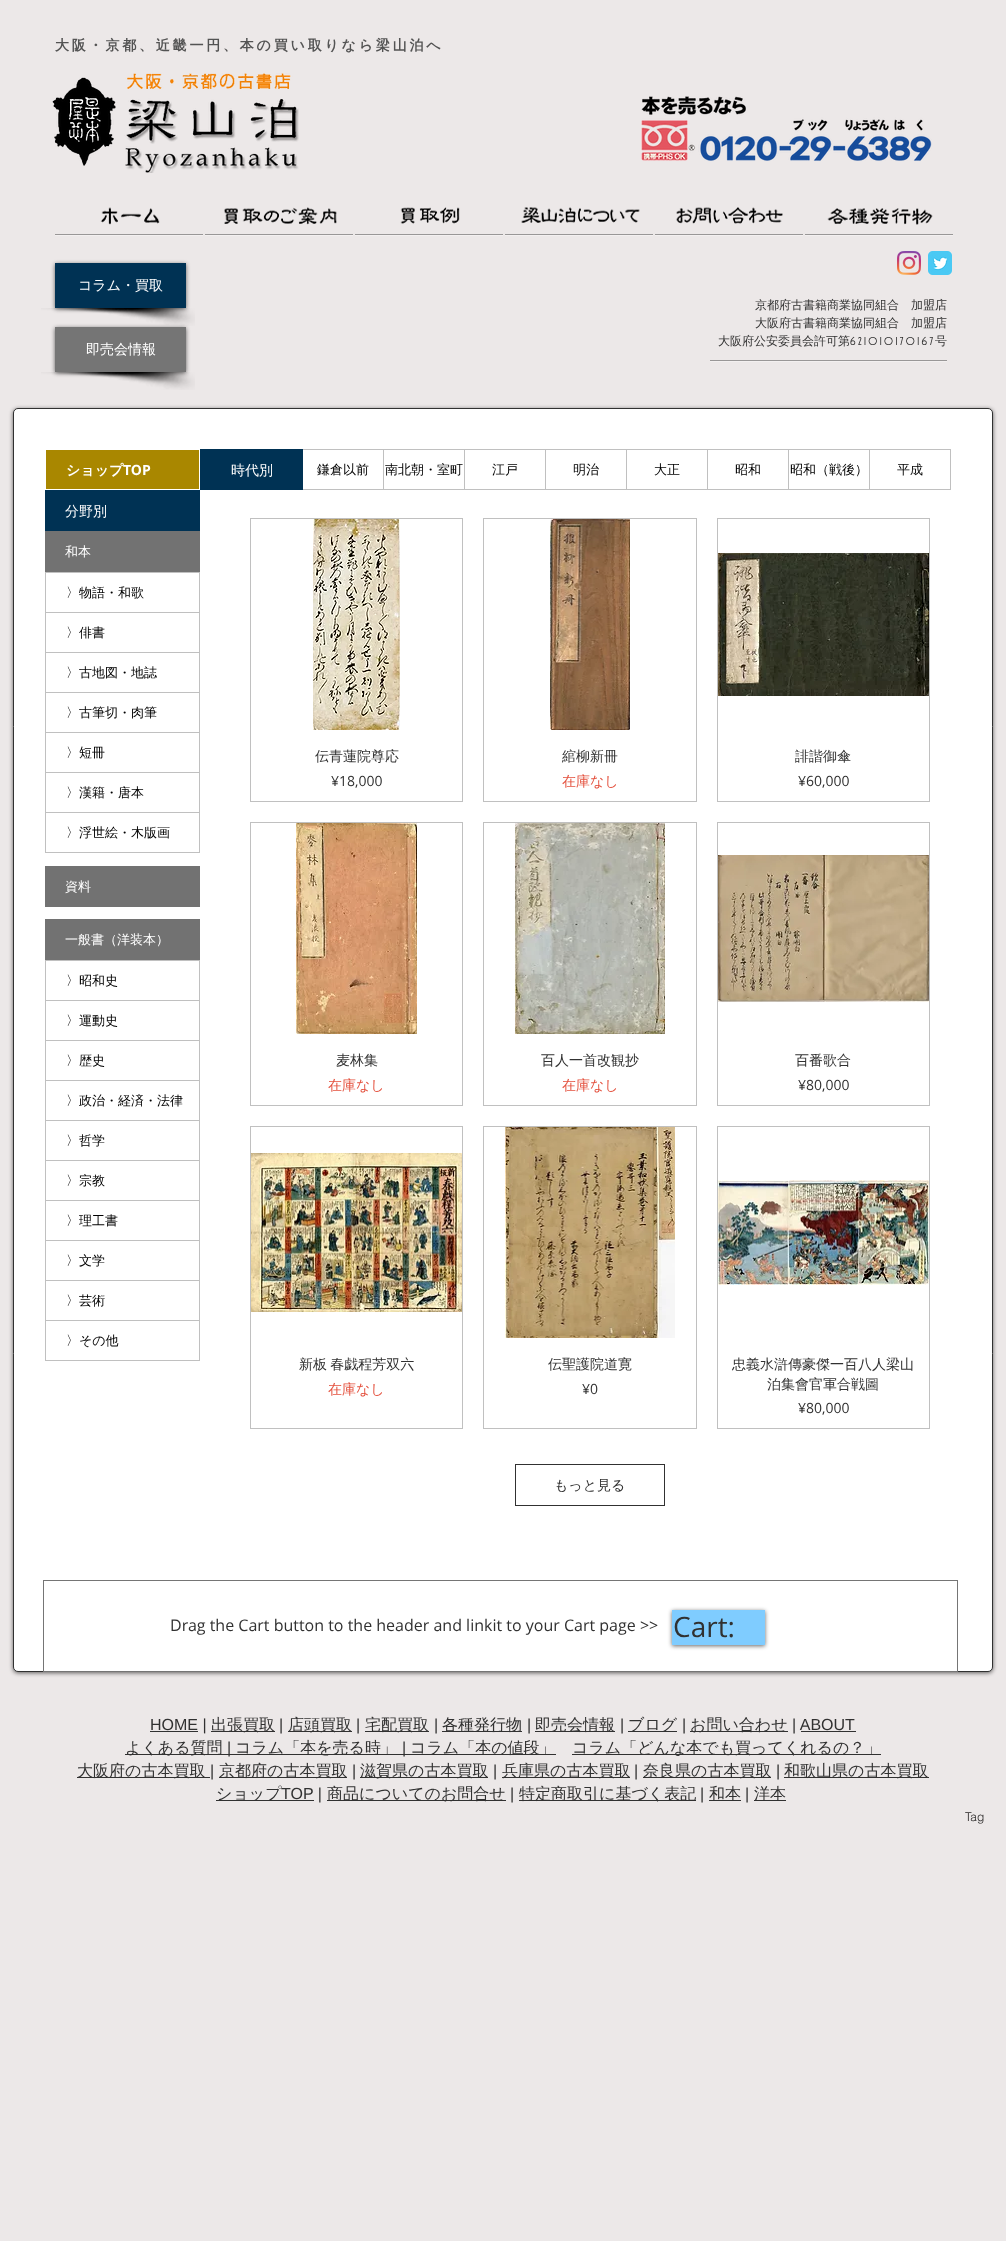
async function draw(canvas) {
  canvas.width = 1006
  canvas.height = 2241
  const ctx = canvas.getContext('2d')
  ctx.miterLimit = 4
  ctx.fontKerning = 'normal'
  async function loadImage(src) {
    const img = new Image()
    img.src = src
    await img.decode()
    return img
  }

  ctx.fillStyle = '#ece8e8'
  ctx.fillRect(0, 0, 1006, 2241)
  ctx.letterSpacing = '2.8px'
  ctx.font = 'bold 14px WenQuanYi Zen Hei'
  ctx.fillStyle = '#535353'
  ctx.fillText('大阪・京都、近畿一円、本の買い取りなら梁山泊へ', 55, 50)
  ctx.drawImage(await loadImage('image0.png'), 52, 73, 247, 100)
  ctx.drawImage(await loadImage('image1.png'), 641, 96, 291, 65)
  ctx.drawImage(await loadImage('image2.png'), 100, 207, 60, 18)
  ctx.drawImage(await loadImage('image3.png'), 224, 207, 113, 18)
  ctx.drawImage(await loadImage('image4.png'), 400, 207, 60, 17)
  ctx.drawImage(await loadImage('image5.png'), 521, 207, 119, 16)
  ctx.drawImage(await loadImage('image6.png'), 676, 207, 107, 17)
  ctx.drawImage(await loadImage('image7.png'), 827, 208, 106, 17)
  ctx.fillStyle = '#999797'
  ctx.fillRect(55, 234, 148, 1)
  ctx.fillStyle = '#f3f0f0'
  ctx.fillRect(55, 235, 148, 1)
  ctx.fillStyle = '#999797'
  ctx.fillRect(205, 234, 148, 1)
  ctx.fillStyle = '#f3f0f0'
  ctx.fillRect(205, 235, 148, 1)
  ctx.fillStyle = '#999797'
  ctx.fillRect(355, 234, 148, 1)
  ctx.fillStyle = '#f3f0f0'
  ctx.fillRect(355, 235, 148, 1)
  ctx.fillStyle = '#999797'
  ctx.fillRect(505, 234, 148, 1)
  ctx.fillStyle = '#f3f0f0'
  ctx.fillRect(505, 235, 148, 1)
  ctx.fillStyle = '#999797'
  ctx.fillRect(655, 234, 148, 1)
  ctx.fillStyle = '#f3f0f0'
  ctx.fillRect(655, 235, 148, 1)
  ctx.fillStyle = '#999797'
  ctx.fillRect(805, 234, 148, 1)
  ctx.fillStyle = '#f3f0f0'
  ctx.fillRect(805, 235, 148, 1)
  ctx.drawImage(await loadImage('image8.png'), 897, 251, 24, 24)
  ctx.drawImage(await loadImage('image9.png'), 928, 251, 24, 24)
  ctx.drawImage(await loadImage('image10.png'), 41, 308, 154, 18)
  ctx.fillStyle = '#00000099'
  ctx.filter = 'blur(2px)'
  ctx.beginPath()
  ctx.rect(55, 264, 131, 45)
  ctx.fill()
  ctx.filter = 'none'
  ctx.fillStyle = '#003254'
  ctx.fillRect(55, 263, 131, 45)
  ctx.letterSpacing = '0px'
  ctx.font = '500 14px WenQuanYi Zen Hei'
  ctx.fillStyle = '#fff'
  ctx.fillText('コラム・買取', 78, 290)
  ctx.font = '500 12px WenQuanYi Zen Hei'
  ctx.fillStyle = '#313131'
  ctx.fillText('京都府古書籍商業協同組合　加盟店', 755, 309)
  ctx.fillText('大阪府古書籍商業協同組合　加盟店', 755, 327)
  ctx.fillText('大阪府公安委員会許可第', 718, 345)
  ctx.letterSpacing = '2.4px'
  ctx.font = '12px "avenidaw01"'
  ctx.fillText('621010170167', 850, 345)
  ctx.letterSpacing = '0px'
  ctx.font = '500 12px WenQuanYi Zen Hei'
  ctx.fillText('号', 935, 345)
  ctx.drawImage(await loadImage('image10.png'), 41, 372, 154, 18)
  ctx.fillStyle = '#00000099'
  ctx.filter = 'blur(2px)'
  ctx.beginPath()
  ctx.rect(55, 328, 131, 45)
  ctx.fill()
  ctx.filter = 'none'
  ctx.fillStyle = '#757575'
  ctx.fillRect(55, 327, 131, 45)
  ctx.font = '500 14px WenQuanYi Zen Hei'
  ctx.fillStyle = '#fff'
  ctx.fillText('即売会情報', 86, 354)
  ctx.fillStyle = '#999797'
  ctx.fillRect(710, 360, 237, 1)
  ctx.fillStyle = '#f3f0f0'
  ctx.fillRect(710, 361, 237, 1)
  ctx.fillStyle = '#00000099'
  ctx.filter = 'blur(2px)'
  ctx.beginPath()
  ctx.roundRect(13, 409, 980, 1264, 5)
  ctx.fill()
  ctx.filter = 'none'
  ctx.fillStyle = '#fff'
  ctx.beginPath()
  ctx.roundRect(13.5, 408.5, 979, 1263, 4.5)
  ctx.fill()
  ctx.strokeStyle = '#313131'
  ctx.stroke()
  ctx.fillStyle = '#a98700'
  ctx.fillRect(46, 450, 153, 39)
  ctx.font = 'bold 14px WenQuanYi Zen Hei'
  ctx.fillStyle = '#fff'
  ctx.fillText('ショップ', 66, 475)
  ctx.font = 'bold 14px Open Sans'
  ctx.fillText('TOP', 123, 475)
  ctx.strokeStyle = '#c0c0c0'
  ctx.strokeRect(464.5, 449.5, 81, 40)
  ctx.strokeRect(383.5, 449.5, 81, 40)
  ctx.strokeRect(302.5, 449.5, 81, 40)
  ctx.fillStyle = '#003254'
  ctx.fillRect(200, 449, 103, 41)
  ctx.font = '500 14px WenQuanYi Zen Hei'
  ctx.fillStyle = '#fff'
  ctx.fillText('時代別', 231, 475)
  ctx.font = '500 13px WenQuanYi Zen Hei'
  ctx.fillStyle = '#000'
  ctx.fillText('鎌倉以前', 317, 474)
  ctx.fillText('南北朝・室町', 385, 474)
  ctx.fillText('江戸', 492, 474)
  ctx.strokeRect(545.5, 449.5, 81, 40)
  ctx.fillText('明治', 573, 474)
  ctx.strokeRect(626.5, 449.5, 81, 40)
  ctx.fillText('大正', 654, 474)
  ctx.strokeRect(707.5, 449.5, 81, 40)
  ctx.fillText('昭和', 735, 474)
  ctx.strokeRect(788.5, 449.5, 81, 40)
  ctx.fillText('昭和（戦後）', 790, 474)
  ctx.strokeRect(869.5, 449.5, 81, 40)
  ctx.fillText('平成', 897, 474)
  ctx.fillStyle = '#003254'
  ctx.fillRect(45, 490, 155, 41)
  ctx.font = '500 14px WenQuanYi Zen Hei'
  ctx.fillStyle = '#fff'
  ctx.fillText('分野別', 65, 516)
  ctx.fillStyle = '#727272'
  ctx.fillRect(45, 531, 155, 41)
  ctx.font = '500 13px WenQuanYi Zen Hei'
  ctx.fillStyle = '#fff'
  ctx.fillText('和本', 65, 556)
  ctx.strokeRect(45.5, 652.5, 154, 40)
  ctx.strokeRect(45.5, 612.5, 154, 40)
  ctx.strokeRect(45.5, 572.5, 154, 40)
  ctx.fillStyle = '#000'
  ctx.fillText('〉物語・和歌', 66, 597)
  ctx.fillText('〉俳書', 66, 637)
  ctx.fillText('〉古地図・地誌', 66, 677)
  ctx.strokeRect(45.5, 692.5, 154, 40)
  ctx.fillText('〉古筆切・肉筆', 66, 717)
  ctx.strokeRect(45.5, 732.5, 154, 40)
  ctx.fillText('〉短冊', 66, 757)
  ctx.strokeRect(250.5, 518.5, 212, 283)
  ctx.drawImage(await loadImage('image11.png'), 313, 519, 87, 211)
  ctx.font = '500 14px WenQuanYi Zen Hei'
  ctx.fillStyle = '#313131'
  ctx.fillText('伝青蓮院尊応', 315, 761)
  ctx.font = '14px Open Sans'
  ctx.fillText('¥18,000', 331, 786)
  ctx.strokeRect(483.5, 518.5, 213, 283)
  ctx.drawImage(await loadImage('image12.png'), 550, 519, 80, 211)
  ctx.font = '500 14px WenQuanYi Zen Hei'
  ctx.fillText('綰柳新冊', 562, 761)
  ctx.fillStyle = '#e4523f'
  ctx.fillText('在庫なし', 562, 786)
  ctx.strokeRect(717.5, 518.5, 212, 283)
  ctx.drawImage(await loadImage('image13.png'), 718, 553, 211, 143)
  ctx.fillStyle = '#313131'
  ctx.fillText('誹諧御傘', 795, 761)
  ctx.font = '14px Open Sans'
  ctx.fillText('¥60,000', 798, 786)
  ctx.strokeRect(250.5, 822.5, 212, 283)
  ctx.drawImage(await loadImage('image14.png'), 296, 823, 121, 211)
  ctx.font = '500 14px WenQuanYi Zen Hei'
  ctx.fillText('麦林集', 336, 1065)
  ctx.fillStyle = '#e4523f'
  ctx.fillText('在庫なし', 328, 1090)
  ctx.strokeRect(483.5, 822.5, 213, 283)
  ctx.drawImage(await loadImage('image15.png'), 515, 823, 150, 211)
  ctx.fillStyle = '#313131'
  ctx.fillText('百人一首改観抄', 541, 1065)
  ctx.fillStyle = '#e4523f'
  ctx.fillText('在庫なし', 562, 1090)
  ctx.strokeRect(717.5, 822.5, 212, 283)
  ctx.drawImage(await loadImage('image16.png'), 718, 855, 211, 147)
  ctx.fillStyle = '#313131'
  ctx.fillText('百番歌合', 795, 1065)
  ctx.font = '14px Open Sans'
  ctx.fillText('¥80,000', 798, 1090)
  ctx.strokeRect(250.5, 1126.5, 212, 302)
  ctx.drawImage(await loadImage('image17.png'), 251, 1153, 211, 159)
  ctx.wordSpacing = '-1px'
  ctx.font = '500 14px WenQuanYi Zen Hei'
  ctx.fillText('新板 春戯程芳双六', 299, 1369)
  ctx.wordSpacing = '0px'
  ctx.fillStyle = '#e4523f'
  ctx.fillText('在庫なし', 328, 1394)
  ctx.strokeRect(483.5, 1126.5, 213, 302)
  ctx.drawImage(await loadImage('image18.png'), 505, 1127, 170, 211)
  ctx.fillStyle = '#313131'
  ctx.fillText('伝聖護院道寛', 548, 1369)
  ctx.font = '14px Open Sans'
  ctx.fillText('¥0', 582, 1394)
  ctx.strokeRect(717.5, 1126.5, 212, 302)
  ctx.drawImage(await loadImage('image19.png'), 718, 1180, 211, 105)
  ctx.font = '500 14px WenQuanYi Zen Hei'
  ctx.fillText('忠義水滸傳豪傑一百八人梁山', 732, 1369)
  ctx.fillText('泊集會官軍合戦圖', 767, 1389)
  ctx.font = '14px Open Sans'
  ctx.fillText('¥80,000', 798, 1413)
  ctx.strokeStyle = '#313131'
  ctx.strokeRect(515.5, 1464.5, 149, 41)
  ctx.font = '500 14px WenQuanYi Zen Hei'
  ctx.fillText('もっと見る', 554, 1490)
  ctx.strokeStyle = '#c0c0c0'
  ctx.strokeRect(45.5, 772.5, 154, 40)
  ctx.font = '500 13px WenQuanYi Zen Hei'
  ctx.fillStyle = '#000'
  ctx.fillText('〉漢籍・唐本', 66, 797)
  ctx.strokeRect(45.5, 812.5, 154, 40)
  ctx.fillText('〉浮世絵・木版画', 66, 837)
  ctx.fillStyle = '#727272'
  ctx.fillRect(45, 866, 155, 41)
  ctx.fillStyle = '#fff'
  ctx.fillText('資料', 65, 891)
  ctx.fillStyle = '#727272'
  ctx.fillRect(45, 919, 155, 41)
  ctx.fillStyle = '#fff'
  ctx.fillText('一般書（洋装本）', 65, 944)
  ctx.strokeRect(45.5, 960.5, 154, 40)
  ctx.fillStyle = '#000'
  ctx.fillText('〉昭和史', 66, 985)
  ctx.strokeRect(45.5, 1000.5, 154, 40)
  ctx.fillText('〉運動史', 66, 1025)
  ctx.strokeRect(45.5, 1040.5, 154, 40)
  ctx.fillText('〉歴史', 66, 1065)
  ctx.strokeRect(45.5, 1080.5, 154, 40)
  ctx.fillText('〉政治・経済・法律', 66, 1105)
  ctx.strokeRect(45.5, 1120.5, 154, 40)
  ctx.fillText('〉哲学', 66, 1145)
  ctx.strokeRect(45.5, 1160.5, 154, 40)
  ctx.fillText('〉宗教', 66, 1185)
  ctx.strokeRect(45.5, 1240.5, 154, 40)
  ctx.strokeRect(45.5, 1200.5, 154, 40)
  ctx.fillText('〉理工書', 66, 1225)
  ctx.fillText('〉文学', 66, 1265)
  ctx.strokeRect(45.5, 1280.5, 154, 40)
  ctx.fillText('〉芸術', 66, 1305)
  ctx.strokeRect(45.5, 1320.5, 154, 40)
  ctx.fillText('〉その他', 66, 1345)
  ctx.strokeStyle = '#757575'
  ctx.strokeRect(43.5, 1580.5, 914, 91)
  ctx.font = '16px Open Sans'
  ctx.fillStyle = '#313131'
  ctx.fillText('Drag the Cart button to the header and linkit to your Cart page >>', 170, 1631)
  ctx.fillStyle = '#00000099'
  ctx.filter = 'blur(2px)'
  ctx.beginPath()
  ctx.rect(672, 1611, 93, 35)
  ctx.fill()
  ctx.filter = 'none'
  ctx.fillStyle = '#7fccff'
  ctx.fillRect(672, 1610, 93, 35)
  ctx.font = '28px Open Sans'
  ctx.fillStyle = '#313131'
  ctx.fillText('Cart:', 673, 1637)
  ctx.fillRect(150, 1731, 48, 1)
  ctx.font = '16px Liberation Sans'
  ctx.fillText('HOME |', 150, 1730)
  ctx.fillRect(211, 1731, 64, 1)
  ctx.font = '500 16px WenQuanYi Zen Hei'
  ctx.fillText('出張買取', 211, 1730)
  ctx.font = '16px Liberation Sans'
  ctx.fillText('|', 279, 1730)
  ctx.fillRect(288, 1731, 64, 1)
  ctx.font = '500 16px WenQuanYi Zen Hei'
  ctx.fillText('店頭買取', 288, 1730)
  ctx.font = '16px Liberation Sans'
  ctx.fillText('|', 356, 1730)
  ctx.fillRect(365, 1731, 64, 1)
  ctx.font = '500 16px WenQuanYi Zen Hei'
  ctx.fillText('宅配買取', 365, 1730)
  ctx.font = '16px Liberation Sans'
  ctx.fillText('|', 434, 1730)
  ctx.fillRect(442, 1731, 80, 1)
  ctx.font = '500 16px WenQuanYi Zen Hei'
  ctx.fillText('各種発行物', 442, 1730)
  ctx.font = '16px Liberation Sans'
  ctx.fillText('|', 527, 1730)
  ctx.fillRect(535, 1731, 80, 1)
  ctx.font = '500 16px WenQuanYi Zen Hei'
  ctx.fillText('即売会情報', 535, 1730)
  ctx.font = '16px Liberation Sans'
  ctx.fillText('|', 620, 1730)
  ctx.fillRect(628, 1731, 49, 1)
  ctx.font = '500 16px WenQuanYi Zen Hei'
  ctx.fillText('ブログ', 628, 1730)
  ctx.font = '16px Liberation Sans'
  ctx.fillText('|', 682, 1730)
  ctx.fillRect(690, 1731, 98, 1)
  ctx.font = '500 16px WenQuanYi Zen Hei'
  ctx.fillText('お問い合わせ', 690, 1730)
  ctx.font = '16px Liberation Sans'
  ctx.fillText('| ABOUT', 792, 1730)
  ctx.fillRect(801, 1731, 55, 1)
  ctx.fillRect(125, 1754, 431, 1)
  ctx.font = '500 16px WenQuanYi Zen Hei'
  ctx.fillText('よくある質問', 125, 1753)
  ctx.font = '16px Liberation Sans'
  ctx.fillText('|', 227, 1753)
  ctx.font = '500 16px WenQuanYi Zen Hei'
  ctx.fillText('コラム「本を売る時」', 235, 1753)
  ctx.font = '16px Liberation Sans'
  ctx.fillText('|', 402, 1753)
  ctx.font = '500 16px WenQuanYi Zen Hei'
  ctx.fillText('コラム「本の値段」', 410, 1753)
  ctx.fillRect(572, 1754, 309, 1)
  ctx.fillText('コラム「どんな本でも買ってくれるの？」', 572, 1753)
  ctx.fillRect(77, 1777, 133, 1)
  ctx.fillText('大阪府の古本買取', 77, 1776)
  ctx.font = '16px Liberation Sans'
  ctx.fillText('|', 210, 1776)
  ctx.fillRect(219, 1777, 128, 1)
  ctx.font = '500 16px WenQuanYi Zen Hei'
  ctx.fillText('京都府の古本買取', 219, 1776)
  ctx.font = '16px Liberation Sans'
  ctx.fillText('|', 352, 1776)
  ctx.fillRect(360, 1777, 128, 1)
  ctx.font = '500 16px WenQuanYi Zen Hei'
  ctx.fillText('滋賀県の古本買取', 360, 1776)
  ctx.font = '16px Liberation Sans'
  ctx.fillText('|', 493, 1776)
  ctx.fillRect(502, 1777, 128, 1)
  ctx.font = '500 16px WenQuanYi Zen Hei'
  ctx.fillText('兵庫県の古本買取', 502, 1776)
  ctx.font = '16px Liberation Sans'
  ctx.fillText('|', 634, 1776)
  ctx.fillRect(643, 1777, 128, 1)
  ctx.font = '500 16px WenQuanYi Zen Hei'
  ctx.fillText('奈良県の古本買取', 643, 1776)
  ctx.font = '16px Liberation Sans'
  ctx.fillText('|', 776, 1776)
  ctx.fillRect(784, 1777, 145, 1)
  ctx.font = '500 16px WenQuanYi Zen Hei'
  ctx.fillText('和歌山県の古本買取', 784, 1776)
  ctx.fillRect(216, 1800, 98, 1)
  ctx.fillText('ショップ', 216, 1799)
  ctx.font = '16px Liberation Sans'
  ctx.fillText('TOP |', 281, 1799)
  ctx.fillRect(327, 1800, 179, 1)
  ctx.font = '500 16px WenQuanYi Zen Hei'
  ctx.fillText('商品についてのお問合せ', 327, 1799)
  ctx.font = '16px Liberation Sans'
  ctx.fillText('|', 510, 1799)
  ctx.fillRect(519, 1800, 177, 1)
  ctx.font = '500 16px WenQuanYi Zen Hei'
  ctx.fillText('特定商取引に基づく表記', 519, 1799)
  ctx.font = '16px Liberation Sans'
  ctx.fillText('|', 700, 1799)
  ctx.fillRect(709, 1800, 32, 1)
  ctx.font = '500 16px WenQuanYi Zen Hei'
  ctx.fillText('和本', 709, 1799)
  ctx.font = '16px Liberation Sans'
  ctx.fillText('|', 745, 1799)
  ctx.fillRect(754, 1800, 32, 1)
  ctx.font = '500 16px WenQuanYi Zen Hei'
  ctx.fillText('洋本', 754, 1799)
  ctx.font = '300 12px helvetica'
  ctx.fillStyle = '#282626'
  ctx.fillText('Tag', 965, 1821)
}

draw(document.querySelector('canvas'))
